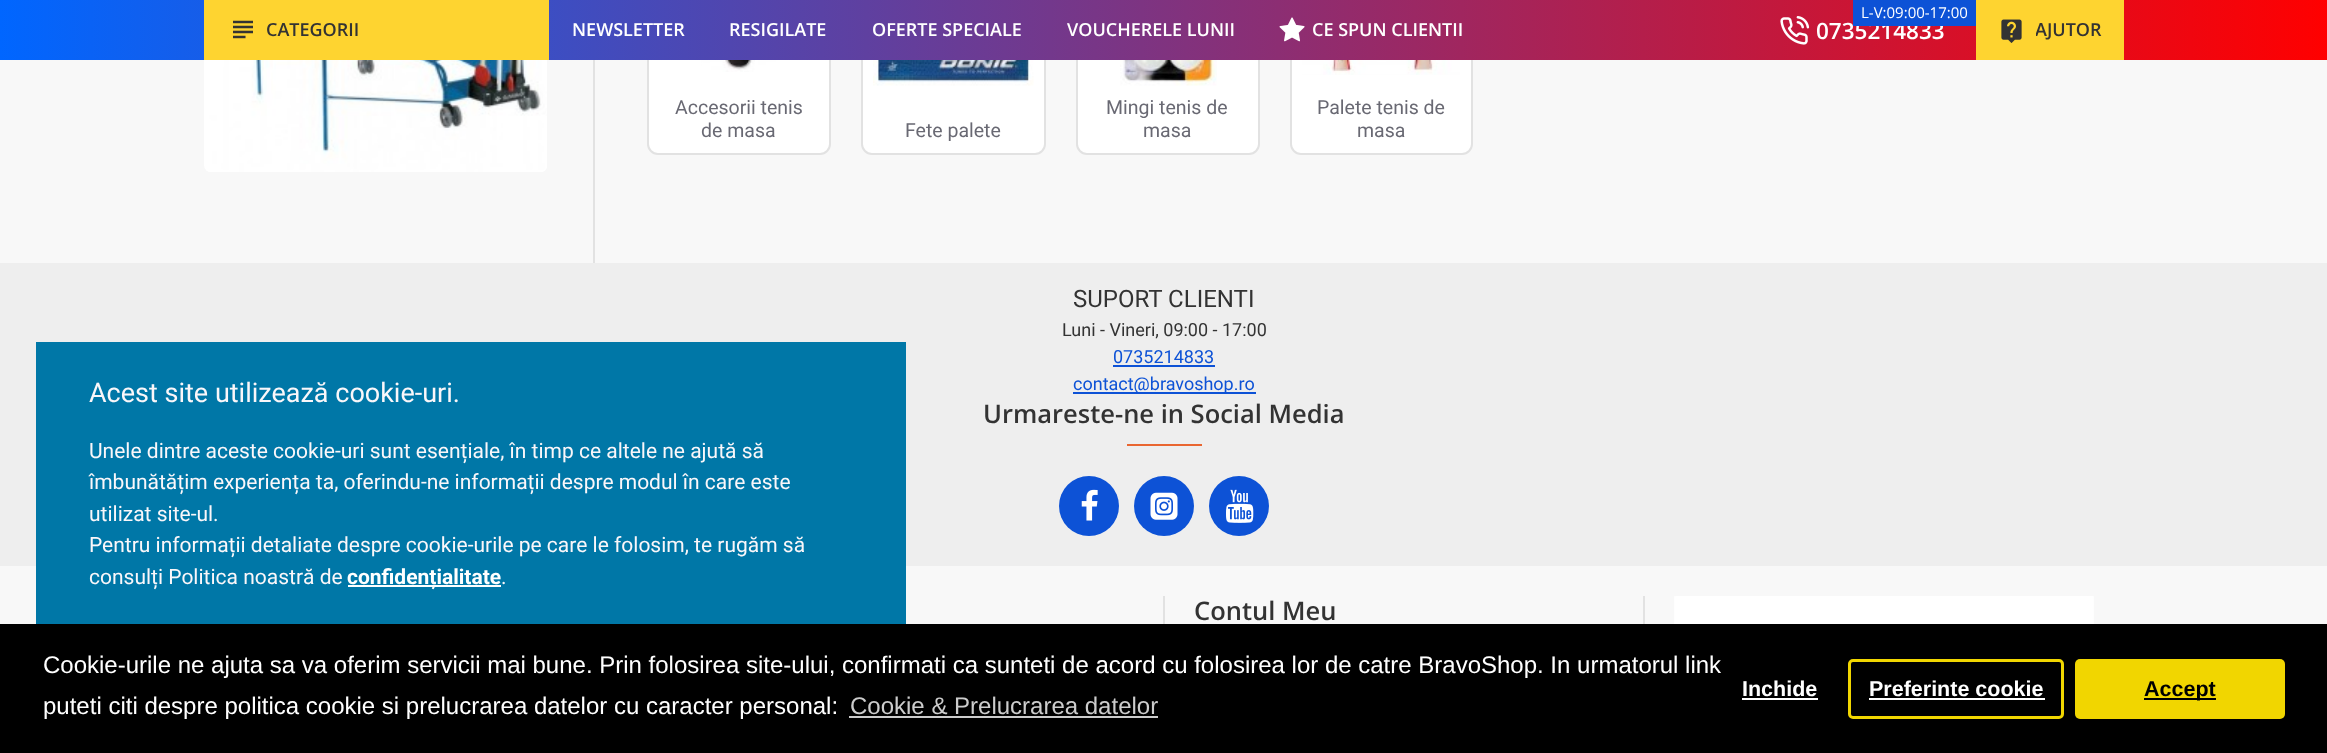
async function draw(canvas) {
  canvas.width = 2327
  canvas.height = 753
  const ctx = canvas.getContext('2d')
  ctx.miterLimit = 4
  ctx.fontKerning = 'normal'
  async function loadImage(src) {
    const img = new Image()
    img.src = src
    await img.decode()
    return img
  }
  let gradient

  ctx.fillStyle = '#f8f8f8'
  ctx.fillRect(0, 0, 2327, 753)
  ctx.fillStyle = '#fff'
  ctx.beginPath()
  ctx.roundRect(648, -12, 182, 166, 10)
  ctx.fill()
  ctx.strokeStyle = '#e2e2e2'
  ctx.lineWidth = 2
  ctx.stroke()
  ctx.beginPath()
  ctx.roundRect(862, -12, 183, 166, 10)
  ctx.fill()
  ctx.stroke()
  ctx.beginPath()
  ctx.roundRect(1077, -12, 182, 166, 10)
  ctx.fill()
  ctx.stroke()
  ctx.beginPath()
  ctx.roundRect(1291, -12, 181, 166, 10)
  ctx.fill()
  ctx.stroke()
  gradient = ctx.createLinearGradient(0, 30, 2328, 30)
  gradient.addColorStop(0, '#06f')
  gradient.addColorStop(1, '#f00')
  ctx.fillStyle = gradient
  ctx.fillRect(0, 0, 2327, 60)
  ctx.fillStyle = '#fed430'
  ctx.fillRect(204, 0, 345, 60)
  ctx.drawImage(await loadImage('image0.png'), 233, 20, 20, 19)
  ctx.font = '600 18px Open Sans'
  ctx.fillStyle = '#333'
  ctx.fillText('CATEGORII', 266, 36)
  ctx.fillStyle = '#fff'
  ctx.fillText('NEWSLETTER', 572, 36)
  ctx.fillText('RESIGILATE', 729, 36)
  ctx.fillText('OFERTE SPECIALE', 872, 36)
  ctx.fillText('VOUCHERELE LUNII', 1067, 36)
  ctx.drawImage(await loadImage('image1.png'), 1279, 17, 26, 25)
  ctx.fillText('CE SPUN CLIENTII', 1312, 36)
  ctx.font = '600 22.5px Open Sans'
  ctx.fillText('0735214833', 1816, 39)
  ctx.fillStyle = '#0d52d6'
  ctx.fillRect(1853, 0, 123, 26)
  ctx.font = '15px Open Sans'
  ctx.fillStyle = '#fff'
  ctx.fillText('L-V:09:00-17:00', 1861, 18)
  ctx.drawImage(await loadImage('image2.png'), 1780, 16, 30, 29)
  ctx.fillStyle = '#fed430'
  ctx.fillRect(1976, 0, 148, 60)
  ctx.drawImage(await loadImage('image3.png'), 2001, 19, 21, 24)
  ctx.save()
  ctx.beginPath()
  ctx.rect(2036, 17, 66, 27)
  ctx.clip()
  ctx.font = '600 18px Open Sans'
  ctx.fillStyle = '#333'
  ctx.fillText('AJUTOR', 2035, 36)
  ctx.restore()
  ctx.fillStyle = '#e2e2e2'
  ctx.fillRect(593, 60, 2, 203)
  ctx.drawImage(await loadImage('image4.png'), 204, 60, 343, 112)
  ctx.drawImage(await loadImage('image5.png'), 701, 60, 75, 12)
  ctx.font = '19.5px Roboto'
  ctx.fillStyle = '#696973'
  ctx.fillText('Accesorii tenis', 675, 114)
  ctx.fillText('de masa', 701, 137)
  ctx.drawImage(await loadImage('image6.png'), 873, 60, 161, 26)
  ctx.fillText('Fete palete', 905, 137)
  ctx.drawImage(await loadImage('image7.png'), 1120, 60, 97, 26)
  ctx.fillText('Mingi tenis de', 1106, 114)
  ctx.fillText('masa', 1143, 137)
  ctx.drawImage(await loadImage('image8.png'), 1302, 60, 158, 15)
  ctx.fillText('Palete tenis de', 1317, 114)
  ctx.fillText('masa', 1357, 137)
  ctx.fillStyle = '#eee'
  ctx.fillRect(0, 263, 2327, 303)
  ctx.font = '24px Roboto'
  ctx.fillStyle = '#333'
  ctx.fillText('SUPORT CLIENTI', 1073, 307)
  ctx.font = '18px Roboto'
  ctx.fillText('Luni - Vineri, 09:00 - 17:00', 1062, 336)
  ctx.fillStyle = '#0d52d6'
  ctx.fillText('0735214833', 1113, 363)
  ctx.fillRect(1113, 365, 102, 2)
  ctx.fillRect(1073, 392, 183, 2)
  ctx.fillText('contact@bravoshop.ro', 1073, 390)
  ctx.font = '600 25.5px Open Sans'
  ctx.fillStyle = '#333'
  ctx.fillText('Urmareste-ne in Social Media', 983, 423)
  ctx.fillStyle = '#e96631'
  ctx.fillRect(1127, 444, 75, 2)
  ctx.fillStyle = '#0d52d6'
  ctx.beginPath()
  ctx.arc(1089, 506, 30, 0, 2 * Math.PI)
  ctx.fill()
  ctx.drawImage(await loadImage('image9.png'), 1081, 489, 17, 32)
  ctx.beginPath()
  ctx.arc(1164, 506, 30, 0, 2 * Math.PI)
  ctx.fill()
  ctx.drawImage(await loadImage('image10.png'), 1150, 492, 28, 28)
  ctx.beginPath()
  ctx.arc(1239, 506, 30, 0, 2 * Math.PI)
  ctx.fill()
  ctx.drawImage(await loadImage('image11.png'), 1226, 489, 28, 34)
  ctx.fillStyle = '#e2e2e2'
  ctx.fillRect(1163, 596, 2, 28)
  ctx.fillRect(1643, 596, 2, 28)
  ctx.fillStyle = '#333'
  ctx.fillText('Contul Meu', 1194, 620)
  ctx.drawImage(await loadImage('image12.png'), 1674, 596, 420, 28)
  ctx.fillStyle = '#0077a7'
  ctx.fillRect(36, 342, 870, 282)
  ctx.font = '27px Roboto'
  ctx.fillStyle = '#faf7fa'
  ctx.fillText('Acest site utilizează cookie-uri.', 89, 402)
  ctx.font = '21px Roboto'
  ctx.fillText('Unele dintre aceste cookie-uri sunt esențiale, în timp ce altele ne ajută să', 89, 458)
  ctx.fillText('îmbunătățim experiența ta, oferindu-ne informații despre modul în care este', 89, 489)
  ctx.fillText('utilizat site-ul.', 89, 521)
  ctx.fillText('Pentru informații detaliate despre cookie-urile pe care le folosim, te rugăm să', 89, 552)
  ctx.fillText('consulți Politica noastră de', 89, 584)
  ctx.fillStyle = '#fff'
  ctx.fillRect(348, 585, 153, 2)
  ctx.font = 'bold 21px Roboto'
  ctx.fillText('confidențialitate', 347, 584)
  ctx.font = '21px Roboto'
  ctx.fillStyle = '#faf7fa'
  ctx.fillText('.', 501, 584)
  ctx.fillStyle = '#000'
  ctx.fillRect(0, 624, 2327, 129)
  ctx.font = '24px Liberation Sans'
  ctx.fillStyle = '#fff'
  ctx.fillText('Cookie-urile ne ajuta sa va oferim servicii mai bune. Prin folosirea site-ului, confirmati ca sunteti de acord cu folosirea lor de catre BravoShop. In urmatorul link', 43, 673)
  ctx.fillText('puteti citi despre politica cookie si prelucrarea datelor cu caracter personal:', 43, 714)
  ctx.fillStyle = '#ccc'
  ctx.fillText('Cookie & Prelucrarea datelor', 850, 714)
  ctx.fillRect(849, 716, 309, 2)
  ctx.font = 'bold 21.5px Liberation Sans'
  ctx.fillStyle = '#fff'
  ctx.fillText('Inchide', 1742, 696)
  ctx.fillRect(1742, 698, 76, 2)
  ctx.beginPath()
  ctx.roundRect(1849.5, 660.5, 213, 57, 3.5)
  ctx.strokeStyle = '#f1d600'
  ctx.lineWidth = 3
  ctx.stroke()
  ctx.fillText('Preferinte cookie', 1869, 696)
  ctx.fillRect(1869, 698, 176, 2)
  ctx.fillStyle = '#f1d600'
  ctx.beginPath()
  ctx.roundRect(2075, 659, 210, 60, 5)
  ctx.fill()
  ctx.fillStyle = '#000'
  ctx.fillRect(2144, 698, 72, 2)
  ctx.fillText('Accept', 2144, 696)
}

draw(document.querySelector('canvas'))
